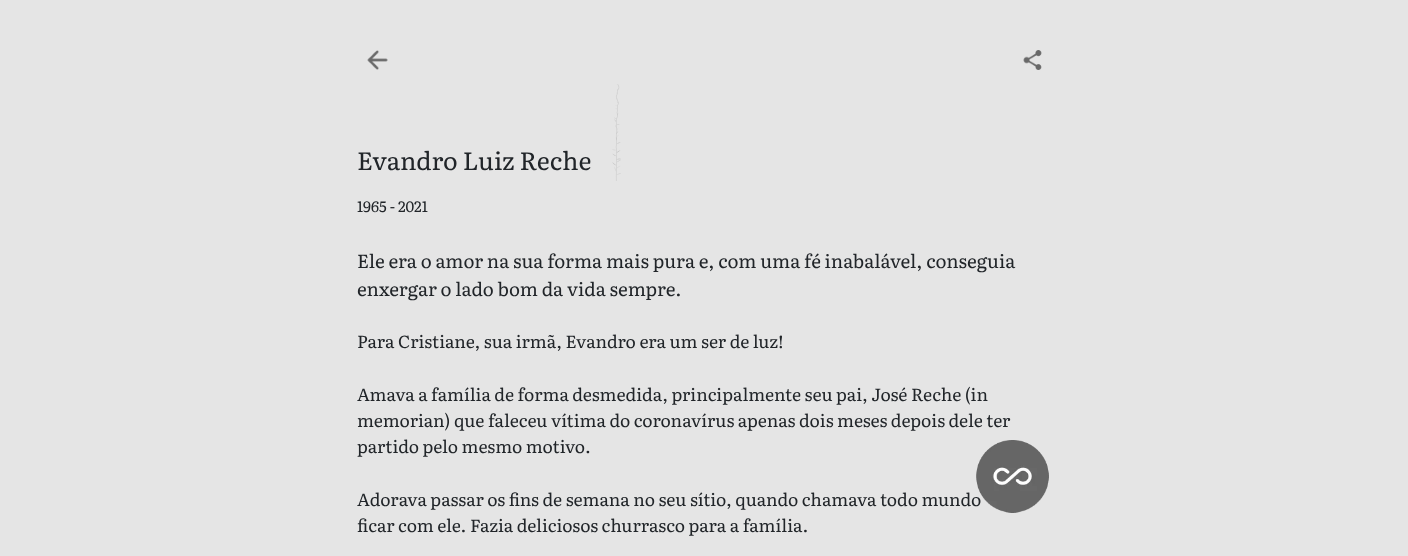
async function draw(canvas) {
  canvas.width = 1408
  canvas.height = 556
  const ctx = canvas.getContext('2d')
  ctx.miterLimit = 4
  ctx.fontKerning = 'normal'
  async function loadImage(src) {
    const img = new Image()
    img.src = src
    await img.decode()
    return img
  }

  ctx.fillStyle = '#e5e5e5'
  ctx.fillRect(0, 0, 1408, 556)
  ctx.drawImage(await loadImage('image0.png'), 367, 50, 21, 20)
  ctx.drawImage(await loadImage('image1.png'), 1023, 50, 19, 20)
  ctx.font = '25px Literata'
  ctx.fillStyle = '#212529'
  ctx.fillText('Evandro Luiz Reche', 357, 170)
  ctx.drawImage(await loadImage('image2.png'), 612, 84, 9, 97)
  ctx.font = '15px Literata'
  ctx.fillText('1965 - 2021', 357, 212)
  ctx.font = '18.75px Literata'
  ctx.fillText('Ele era o amor na sua forma mais pura e, com uma fé inabalável, conseguia', 357, 268)
  ctx.fillText('enxergar o lado bom da vida sempre.', 357, 296)
  ctx.font = '17.5px Literata'
  ctx.fillText('Para Cristiane, sua irmã, Evandro era um ser de luz!', 357, 348)
  ctx.fillText('Amava a família de forma desmedida, principalmente seu pai, José Reche (in', 357, 401)
  ctx.fillText('memorian) que faleceu vítima do coronavírus apenas dois meses depois dele ter', 357, 427)
  ctx.fillText('partido pelo mesmo motivo.', 357, 453)
  ctx.fillText('Adorava passar os fins de semana no seu sítio, quando chamava todo mundo', 357, 506)
  ctx.fillText('ficar com ele. Fazia deliciosos churrasco para a família.', 357, 532)
  ctx.drawImage(await loadImage('image3.png'), 976, 440, 73, 73)
}

draw(document.querySelector('canvas'))
